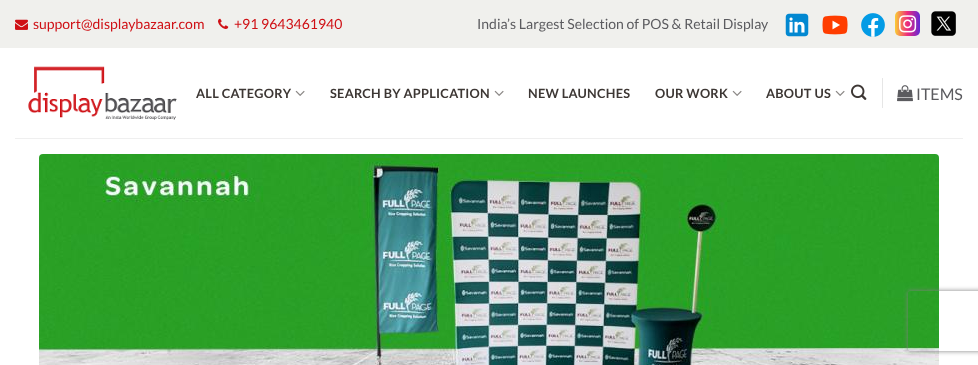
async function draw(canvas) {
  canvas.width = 978
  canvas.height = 365
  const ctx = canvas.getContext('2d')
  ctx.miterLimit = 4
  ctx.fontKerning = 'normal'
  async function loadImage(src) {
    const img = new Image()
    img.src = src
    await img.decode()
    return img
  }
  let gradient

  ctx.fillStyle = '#fff'
  ctx.fillRect(0, 0, 978, 365)
  ctx.fillStyle = '#f0f0ed'
  ctx.fillRect(0, 0, 978, 48)
  ctx.drawImage(await loadImage('image0.png'), 15, 19, 13, 11)
  ctx.font = '14px Lato'
  ctx.fillStyle = '#cf1015'
  ctx.fillText('support@displaybazaar.com', 33, 29)
  ctx.drawImage(await loadImage('image1.png'), 218, 18, 11, 11)
  ctx.fillText('+91 9643461940', 234, 29)
  ctx.fillStyle = '#5b5b5f'
  ctx.fillText('India’s Largest Selection of POS & Retail Display', 477, 29)
  ctx.drawImage(await loadImage('image2.png'), 785, 13, 24, 24)
  ctx.drawImage(await loadImage('image3.png'), 822, 15, 26, 20)
  ctx.drawImage(await loadImage('image4.png'), 861, 13, 24, 24)
  gradient = ctx.createLinearGradient(895, 24, 920, 24)
  gradient.addColorStop(0, '#f9ce34')
  gradient.addColorStop(0.5, '#ee2a7b')
  gradient.addColorStop(1, '#6228d7')
  ctx.fillStyle = gradient
  ctx.beginPath()
  ctx.roundRect(895, 11, 25, 25, 5)
  ctx.fill()
  ctx.drawImage(await loadImage('image5.png'), 899, 15, 18, 18)
  ctx.drawImage(await loadImage('image6.png'), 931, 11, 25, 25)
  ctx.drawImage(await loadImage('image7.png'), 28, 66, 149, 54)
  ctx.letterSpacing = '0.25px'
  ctx.font = 'bold 12.75px Lato'
  ctx.fillStyle = '#3d3734'
  ctx.fillText('ALL CATEGORY', 196, 98)
  ctx.drawImage(await loadImage('image8.png'), 295, 90, 10, 6)
  ctx.fillText('SEARCH BY APPLICATION', 330, 98)
  ctx.drawImage(await loadImage('image8.png'), 494, 90, 10, 6)
  ctx.fillText('NEW LAUNCHES', 528, 98)
  ctx.fillText('OUR WORK', 655, 98)
  ctx.drawImage(await loadImage('image8.png'), 732, 90, 10, 6)
  ctx.fillText('ABOUT US', 766, 98)
  ctx.drawImage(await loadImage('image8.png'), 835, 90, 10, 6)
  ctx.drawImage(await loadImage('image9.png'), 851, 84, 16, 16)
  ctx.fillStyle = '#e6e6e6'
  ctx.fillRect(882, 78, 1, 30)
  ctx.drawImage(await loadImage('image10.png'), 897, 85, 16, 17)
  ctx.letterSpacing = '0px'
  ctx.font = '16px Lato'
  ctx.fillStyle = '#5b5b5f'
  ctx.fillText('ITEMS', 916, 100)
  ctx.fillStyle = '#efefef'
  ctx.fillRect(15, 138, 948, 1)
  ctx.drawImage(await loadImage('image11.png'), 39, 154, 900, 211)
  ctx.save()
  ctx.beginPath()
  ctx.moveTo(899, 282)
  ctx.lineTo(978, 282)
  ctx.lineTo(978, 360)
  ctx.lineTo(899, 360)
  ctx.closePath()
  ctx.moveTo(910, 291)
  ctx.lineTo(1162, 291)
  ctx.bezierCurveTo(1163, 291, 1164, 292, 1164, 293)
  ctx.lineTo(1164, 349)
  ctx.bezierCurveTo(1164, 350, 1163, 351, 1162, 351)
  ctx.lineTo(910, 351)
  ctx.bezierCurveTo(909, 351, 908, 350, 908, 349)
  ctx.lineTo(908, 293)
  ctx.bezierCurveTo(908, 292, 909, 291, 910, 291)
  ctx.closePath()
  ctx.clip('evenodd')
  ctx.fillStyle = '#808080'
  ctx.filter = 'blur(2.5px)'
  ctx.beginPath()
  ctx.roundRect(908, 291, 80, 60, 2)
  ctx.fill()
  ctx.filter = 'none'
  ctx.restore()
}

draw(document.querySelector('canvas'))
